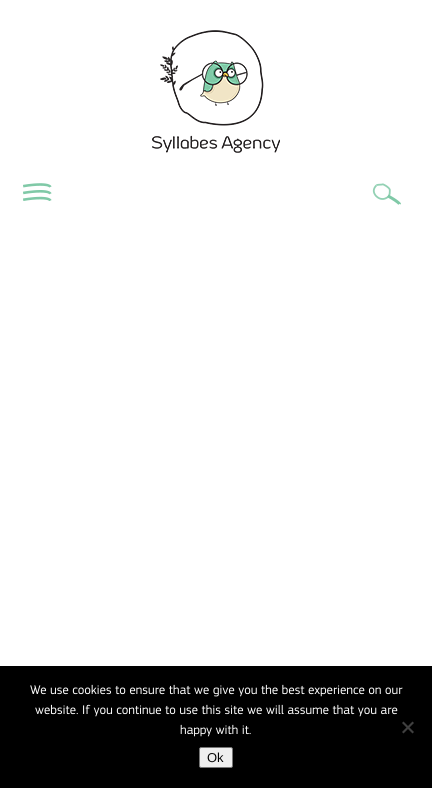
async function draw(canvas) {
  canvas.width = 432
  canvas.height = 788
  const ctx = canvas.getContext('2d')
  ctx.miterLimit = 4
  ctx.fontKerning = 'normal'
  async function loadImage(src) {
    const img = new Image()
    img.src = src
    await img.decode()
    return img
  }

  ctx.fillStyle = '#fff'
  ctx.fillRect(0, 0, 432, 788)
  ctx.drawImage(await loadImage('image0.png'), 152, 30, 128, 123)
  ctx.drawImage(await loadImage('image1.png'), 23, 183, 29, 18)
  ctx.drawImage(await loadImage('image2.png'), 372, 183, 29, 22)
  ctx.fillStyle = '#000'
  ctx.fillRect(0, 666, 432, 122)
  ctx.drawImage(await loadImage('image3.png'), 30, 684, 373, 13)
  ctx.drawImage(await loadImage('image4.png'), 35, 704, 363, 13)
  ctx.drawImage(await loadImage('image5.png'), 180, 724, 71, 13)
  ctx.fillStyle = '#404040'
  ctx.beginPath()
  ctx.moveTo(412.5, 721.5)
  ctx.lineTo(414, 723)
  ctx.lineTo(403.5, 733.5)
  ctx.lineTo(402, 732)
  ctx.closePath()
  ctx.fill()
  ctx.beginPath()
  ctx.moveTo(402, 723)
  ctx.lineTo(403.5, 721.5)
  ctx.lineTo(414, 732)
  ctx.lineTo(412.5, 733.5)
  ctx.closePath()
  ctx.fill()
  ctx.fillStyle = '#efefef'
  ctx.beginPath()
  ctx.roundRect(199.5, 747.5, 33, 20, 1.5)
  ctx.fill()
  ctx.strokeStyle = '#767676'
  ctx.stroke()
  ctx.font = '13px Liberation Sans'
  ctx.fillStyle = '#000'
  ctx.fillText('Ok', 207, 762)
}

draw(document.querySelector('canvas'))
